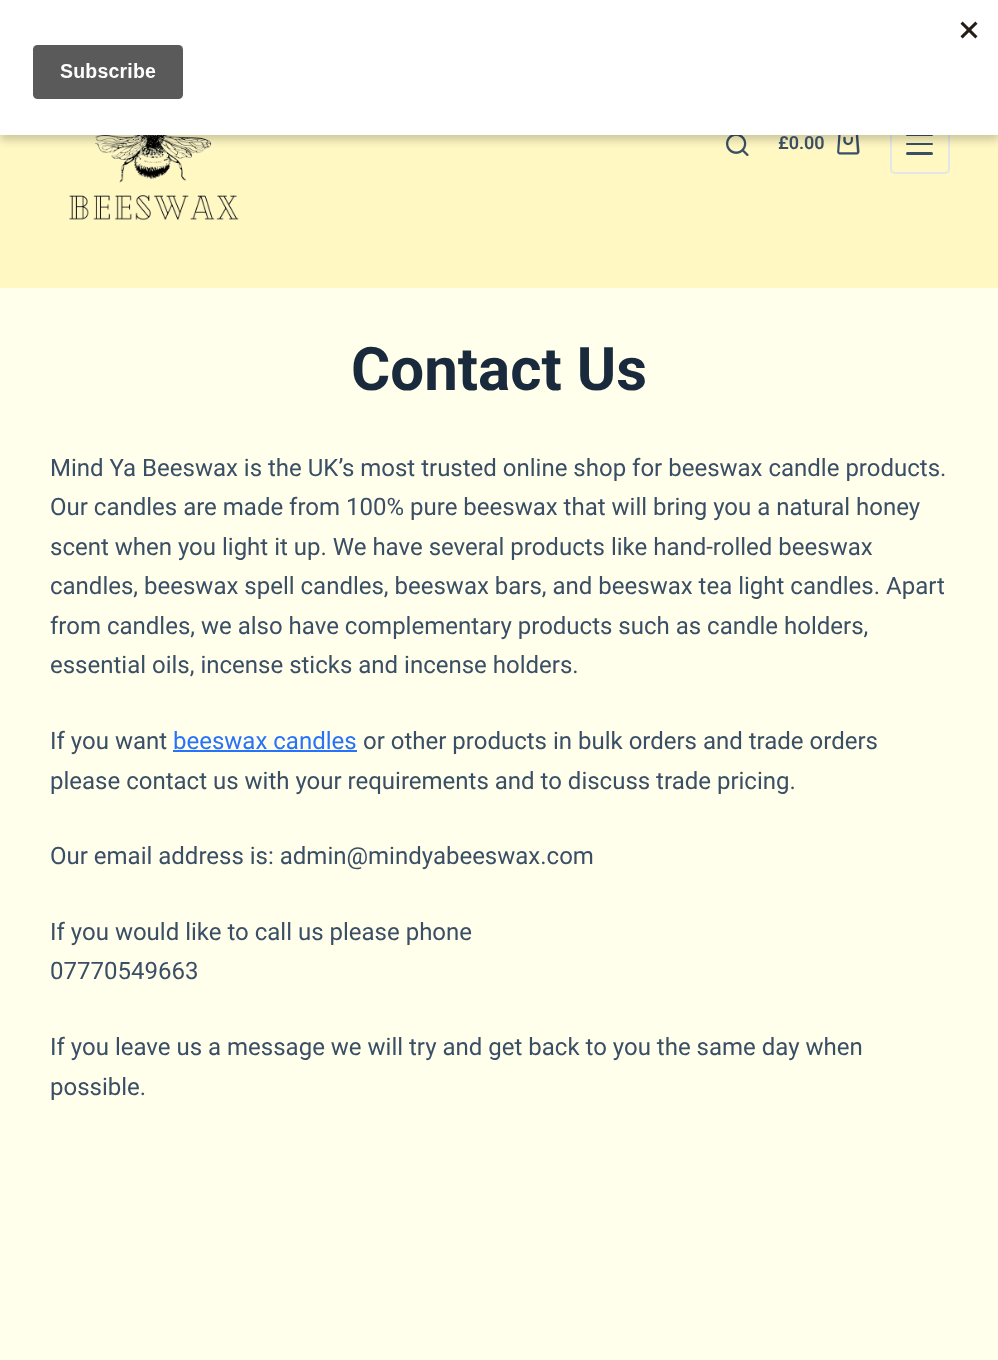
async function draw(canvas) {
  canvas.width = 998
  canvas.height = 1360
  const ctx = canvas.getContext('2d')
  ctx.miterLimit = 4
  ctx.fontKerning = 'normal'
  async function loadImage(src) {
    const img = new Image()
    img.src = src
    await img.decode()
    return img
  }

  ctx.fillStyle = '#ffffeb'
  ctx.fillRect(0, 0, 998, 1360)
  ctx.fillStyle = '#fff8c3'
  ctx.fillRect(0, 135, 998, 153)
  ctx.drawImage(await loadImage('image1.png'), 69, 135, 170, 86)
  ctx.drawImage(await loadImage('image2.png'), 726, 135, 23, 21)
  ctx.drawImage(await loadImage('image3.png'), 837, 135, 23, 20)
  ctx.beginPath()
  ctx.roundRect(891, 115, 58, 58, 4)
  ctx.strokeStyle = '#e3e7e7'
  ctx.lineWidth = 2
  ctx.stroke()
  ctx.fillStyle = '#3a4f66'
  ctx.beginPath()
  ctx.roundRect(906, 134, 27, 2, 1)
  ctx.fill()
  ctx.beginPath()
  ctx.roundRect(906, 143, 27, 2, 1)
  ctx.fill()
  ctx.beginPath()
  ctx.roundRect(906, 152, 27, 3, 1.5)
  ctx.fill()
  ctx.fillStyle = '#00000033'
  ctx.filter = 'blur(4.5px)'
  ctx.beginPath()
  ctx.rect(0, 5, 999, 135)
  ctx.fill()
  ctx.filter = 'none'
  ctx.fillStyle = '#fff'
  ctx.fillRect(0, 0, 998, 135)
  ctx.drawImage(await loadImage('image0.png'), 32, 21, 946, 78)
  ctx.font = '600 18px Roboto'
  ctx.fillStyle = '#3a4f66'
  ctx.fillText('£0.00', 778, 149)
  ctx.font = 'bold 60px Roboto'
  ctx.fillStyle = '#192a3d'
  ctx.fillText('Contact Us', 351, 390)
  ctx.font = '24px Roboto'
  ctx.fillStyle = '#3a4f66'
  ctx.fillText('Mind Ya Beeswax is the UK’s most trusted online shop for beeswax candle products.', 50, 476)
  ctx.fillText('Our candles are made from 100% pure beeswax that will bring you a natural honey', 50, 515)
  ctx.fillText('scent when you light it up. We have several products like hand-rolled beeswax', 50, 555)
  ctx.fillText('candles, beeswax spell candles, beeswax bars, and beeswax tea light candles. Apart', 50, 594)
  ctx.fillText('from candles, we also have complementary products such as candle holders,', 50, 634)
  ctx.fillText('essential oils, incense sticks and incense holders.', 50, 673)
  ctx.fillText('If you want', 50, 749)
  ctx.fillStyle = '#2872fa'
  ctx.fillText('beeswax candles', 173, 749)
  ctx.fillRect(173, 750, 184, 2)
  ctx.fillStyle = '#3a4f66'
  ctx.fillText('or other products in bulk orders and trade orders', 363, 749)
  ctx.fillText('please contact us with your requirements and to discuss trade pricing.', 50, 789)
  ctx.fillText('Our email address is: admin@mindyabeeswax.com', 50, 864)
  ctx.fillText('If you would like to call us please phone', 50, 940)
  ctx.fillText('07770549663', 50, 979)
  ctx.fillText('If you leave us a message we will try and get back to you the same day when', 50, 1055)
  ctx.fillText('possible.', 50, 1095)
}

draw(document.querySelector('canvas'))
